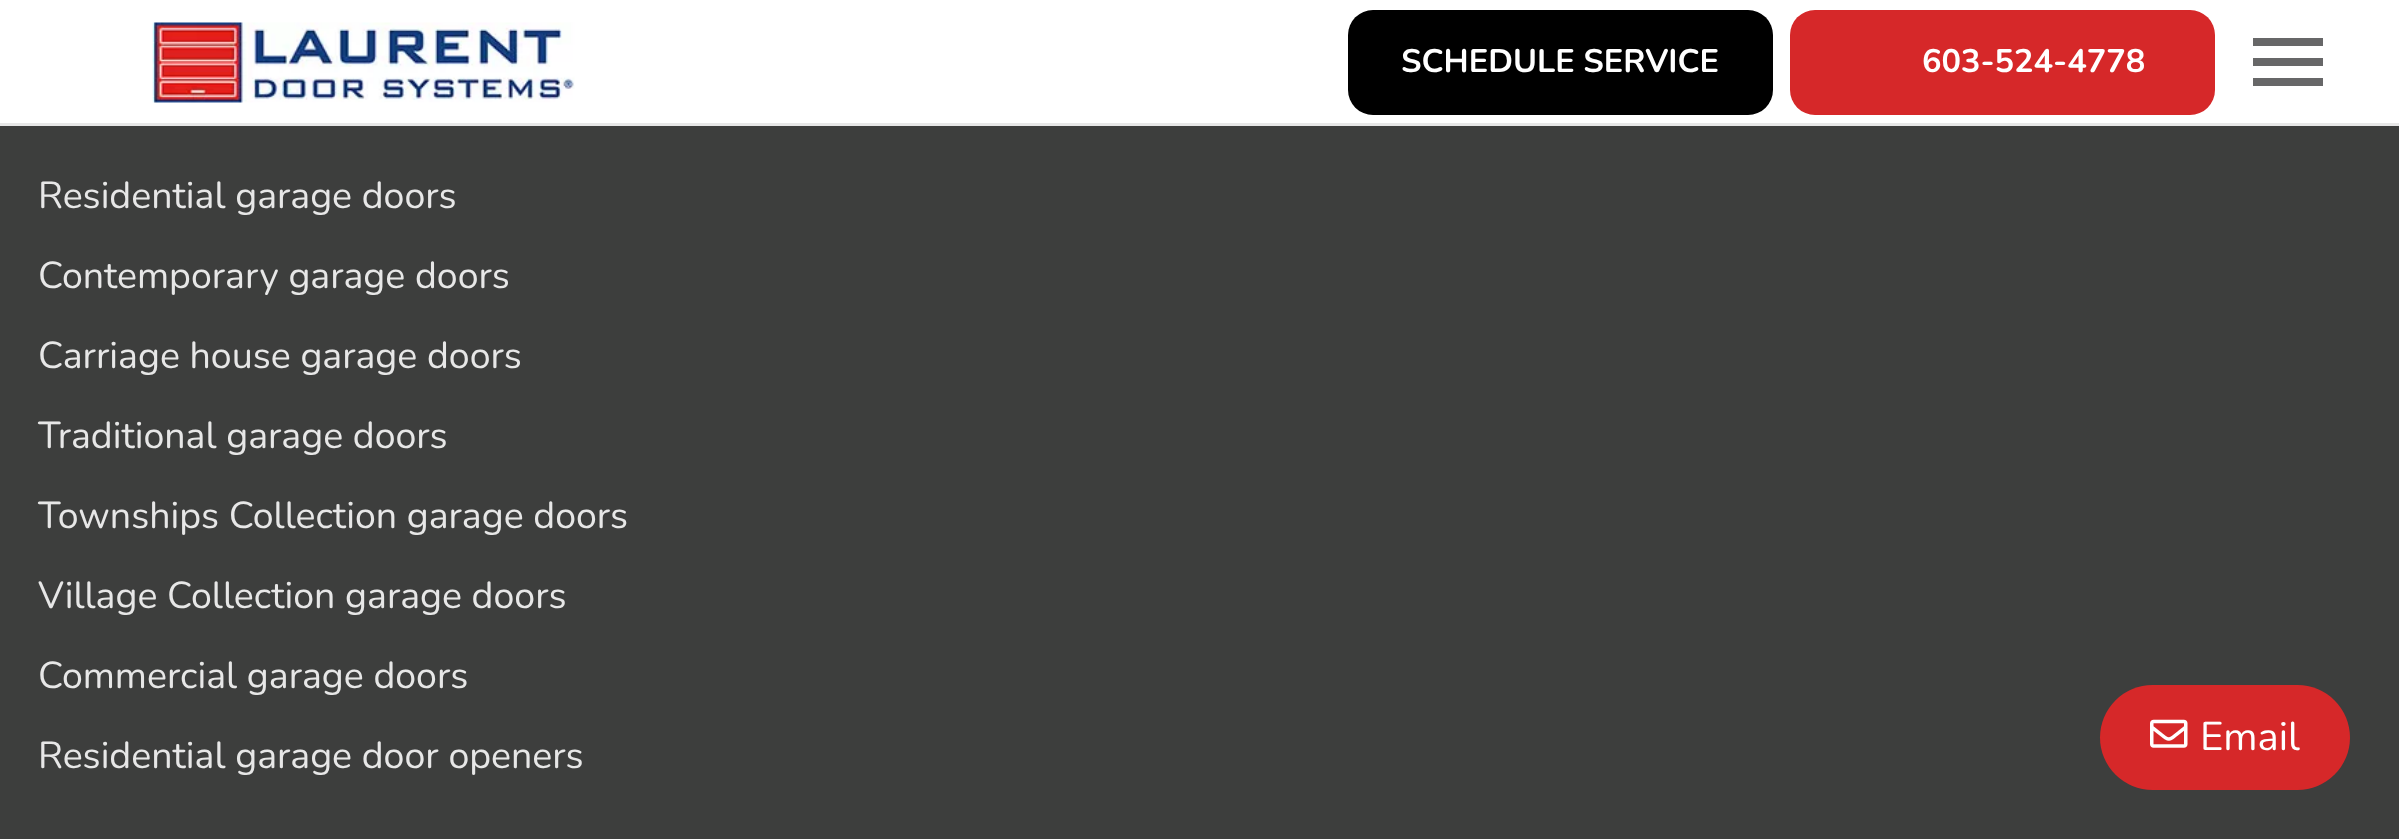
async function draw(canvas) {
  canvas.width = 2399
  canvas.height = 839
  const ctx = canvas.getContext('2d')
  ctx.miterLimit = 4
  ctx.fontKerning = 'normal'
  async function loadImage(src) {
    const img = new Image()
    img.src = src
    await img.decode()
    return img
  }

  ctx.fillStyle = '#3d3e3d'
  ctx.fillRect(0, 0, 2399, 839)
  ctx.fillStyle = '#fff'
  ctx.fillRect(0, 0, 2399, 123)
  ctx.fillStyle = '#e7e7e7'
  ctx.fillRect(0, 123, 2399, 3)
  ctx.drawImage(await loadImage('image0.png'), 152, 22, 423, 81)
  ctx.fillStyle = '#676768'
  ctx.fillRect(2253, 58, 70, 8)
  ctx.fillRect(2253, 38, 70, 8)
  ctx.fillRect(2253, 78, 70, 8)
  ctx.fillStyle = '#000'
  ctx.beginPath()
  ctx.roundRect(1348, 10, 425, 105, 25)
  ctx.fill()
  ctx.font = 'bold 32.5px Nunito'
  ctx.fillStyle = '#fff'
  ctx.fillText('SCHEDULE SERVICE', 1401, 72)
  ctx.fillStyle = '#d62829'
  ctx.beginPath()
  ctx.roundRect(1790, 10, 425, 105, 25)
  ctx.fill()
  ctx.fillStyle = '#fff'
  ctx.fillText('603-524-4778', 1922, 72)
  ctx.font = '37.5px Nunito'
  ctx.fillStyle = '#e7e7e7'
  ctx.fillText('Residential garage doors', 38, 208)
  ctx.fillText('Contemporary garage doors', 38, 288)
  ctx.fillText('Carriage house garage doors', 38, 368)
  ctx.fillText('Traditional garage doors', 38, 448)
  ctx.fillText('Townships Collection garage doors', 38, 528)
  ctx.fillText('Village Collection garage doors', 38, 608)
  ctx.fillText('Commercial garage doors', 38, 688)
  ctx.fillText('Residential garage door openers', 38, 768)
  ctx.fillStyle = '#d62829'
  ctx.beginPath()
  ctx.roundRect(2100, 685, 250, 105, 52.5)
  ctx.fill()
  ctx.drawImage(await loadImage('image1.png'), 2150, 719, 38, 29)
  ctx.font = '40px Nunito'
  ctx.fillStyle = '#fff'
  ctx.fillText('Email', 2200, 750)
}

draw(document.querySelector('canvas'))
